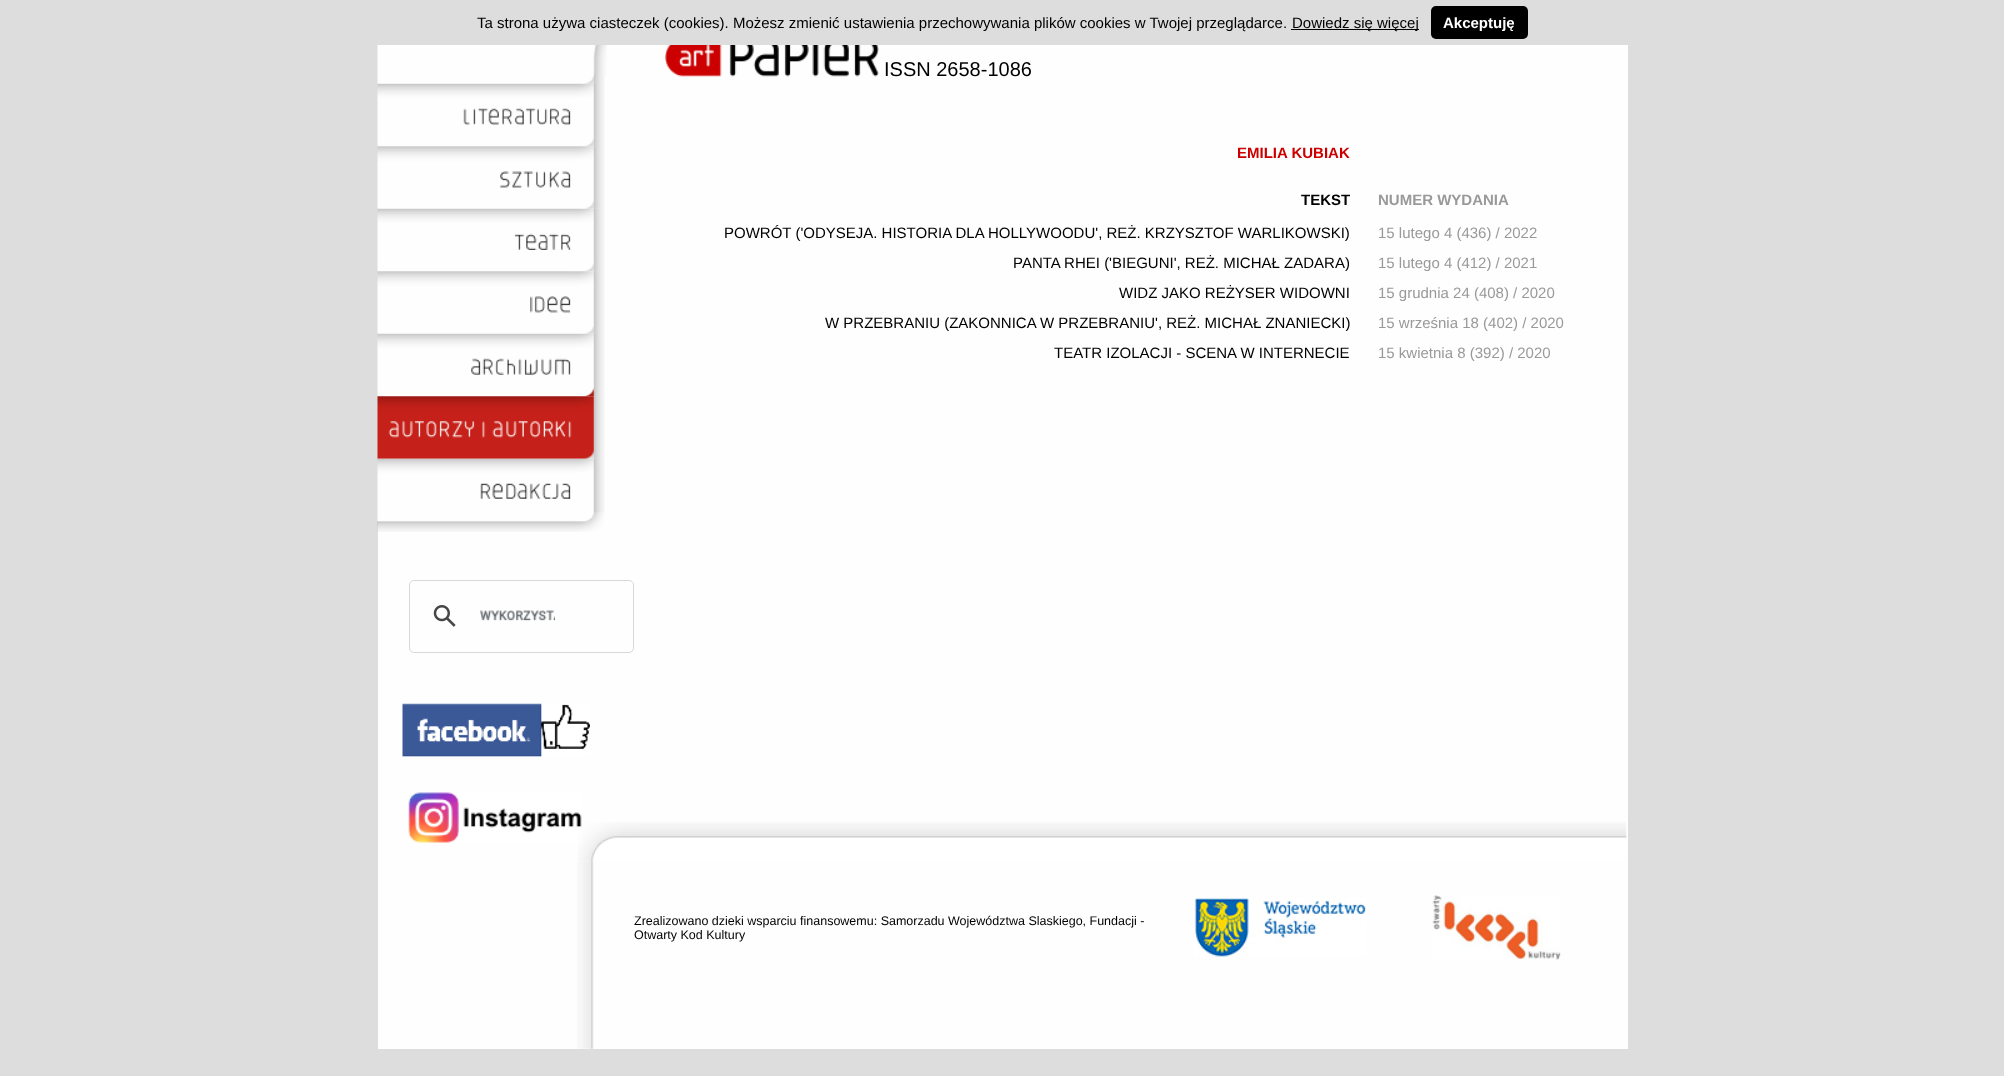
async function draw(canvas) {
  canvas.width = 2004
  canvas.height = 1076
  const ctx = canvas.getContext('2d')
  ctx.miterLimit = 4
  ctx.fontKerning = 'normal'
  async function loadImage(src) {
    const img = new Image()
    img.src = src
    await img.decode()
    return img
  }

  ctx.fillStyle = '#ddd'
  ctx.fillRect(0, 0, 2004, 1076)
  ctx.font = '15px Liberation Sans'
  ctx.fillStyle = '#000'
  ctx.fillText('Ta strona używa ciasteczek (cookies). Możesz zmienić ustawienia przechowywania plików cookies w Twojej przeglądarce.', 477, 28)
  ctx.fillRect(1291, 29, 128, 1)
  ctx.fillText('Dowiedz się więcej', 1292, 28)
  ctx.beginPath()
  ctx.roundRect(1431, 6, 97, 33, 5)
  ctx.fill()
  ctx.font = 'bold 15px Liberation Sans'
  ctx.fillStyle = '#fff'
  ctx.fillText('Akceptuję', 1443, 28)
  ctx.fillStyle = '#fefefe'
  ctx.fillRect(378, 45, 1250, 1004)
  ctx.drawImage(await loadImage('image0.png'), 377, 45, 230, 30)
  ctx.drawImage(await loadImage('image1.png'), 377, 75, 228, 9)
  ctx.drawImage(await loadImage('image2.png'), 377, 83, 228, 55)
  ctx.drawImage(await loadImage('image3.png'), 463, 108, 108, 17)
  ctx.drawImage(await loadImage('image4.png'), 377, 137, 228, 10)
  ctx.drawImage(await loadImage('image5.png'), 377, 146, 228, 54)
  ctx.drawImage(await loadImage('image6.png'), 500, 171, 71, 17)
  ctx.drawImage(await loadImage('image1.png'), 377, 200, 228, 9)
  ctx.drawImage(await loadImage('image2.png'), 377, 208, 228, 55)
  ctx.drawImage(await loadImage('image7.png'), 514, 233, 57, 17)
  ctx.drawImage(await loadImage('image4.png'), 377, 262, 228, 10)
  ctx.drawImage(await loadImage('image5.png'), 377, 271, 228, 54)
  ctx.drawImage(await loadImage('image8.png'), 530, 296, 41, 17)
  ctx.drawImage(await loadImage('image1.png'), 377, 325, 228, 9)
  ctx.drawImage(await loadImage('image2.png'), 377, 333, 228, 55)
  ctx.drawImage(await loadImage('image9.png'), 471, 358, 100, 17)
  ctx.drawImage(await loadImage('image10.png'), 377, 387, 228, 10)
  ctx.drawImage(await loadImage('image11.png'), 377, 396, 228, 54)
  ctx.drawImage(await loadImage('image12.png'), 388, 421, 184, 17)
  ctx.drawImage(await loadImage('image13.png'), 377, 450, 228, 9)
  ctx.drawImage(await loadImage('image14.png'), 377, 458, 228, 55)
  ctx.drawImage(await loadImage('image15.png'), 480, 483, 91, 16)
  ctx.drawImage(await loadImage('image16.png'), 377, 512, 227, 20)
  ctx.beginPath()
  ctx.roundRect(409.5, 580.5, 224, 72, 4.5)
  ctx.strokeStyle = '#d9d9d9'
  ctx.stroke()
  ctx.drawImage(await loadImage('image17.png'), 433, 605, 23, 22)
  ctx.drawImage(await loadImage('image18.png'), 480, 610, 75, 11)
  ctx.drawImage(await loadImage('image19.png'), 402, 703, 188, 54)
  ctx.drawImage(await loadImage('image20.png'), 408, 792, 174, 51)
  ctx.drawImage(await loadImage('image21.png'), 665, 45, 214, 32)
  ctx.font = '20px Liberation Sans'
  ctx.fillStyle = '#000'
  ctx.fillText('ISSN 2658-1086', 884, 76)
  ctx.font = 'bold 15px Liberation Sans'
  ctx.fillStyle = '#c00'
  ctx.fillText('EMILIA KUBIAK', 1237, 158)
  ctx.fillStyle = '#000'
  ctx.fillText('TEKST', 1301, 205)
  ctx.fillStyle = '#999'
  ctx.fillText('NUMER WYDANIA', 1378, 205)
  ctx.font = '15px Liberation Sans'
  ctx.fillStyle = '#000'
  ctx.fillText('POWRÓT (\'ODYSEJA. HISTORIA DLA HOLLYWOODU\', REŻ. KRZYSZTOF WARLIKOWSKI)', 724, 238)
  ctx.fillStyle = '#999'
  ctx.fillText('15 lutego 4 (436) / 2022', 1378, 238)
  ctx.fillStyle = '#000'
  ctx.fillText('PANTA RHEI (\'BIEGUNI\', REŻ. MICHAŁ ZADARA)', 1013, 268)
  ctx.fillStyle = '#999'
  ctx.fillText('15 lutego 4 (412) / 2021', 1378, 268)
  ctx.fillStyle = '#000'
  ctx.fillText('WIDZ JAKO REŻYSER WIDOWNI', 1119, 298)
  ctx.fillStyle = '#999'
  ctx.fillText('15 grudnia 24 (408) / 2020', 1378, 298)
  ctx.fillStyle = '#000'
  ctx.fillText('W PRZEBRANIU (ZAKONNICA W PRZEBRANIU\', REŻ. MICHAŁ ZNANIECKI)', 825, 328)
  ctx.fillStyle = '#999'
  ctx.fillText('15 września 18 (402) / 2020', 1378, 328)
  ctx.fillStyle = '#000'
  ctx.fillText('TEATR IZOLACJI - SCENA W INTERNECIE', 1054, 358)
  ctx.fillStyle = '#999'
  ctx.fillText('15 kwietnia 8 (392) / 2020', 1378, 358)
  ctx.drawImage(await loadImage('image22.png'), 578, 822, 1049, 40)
  ctx.drawImage(await loadImage('image23.png'), 577, 861, 17, 188)
  ctx.font = '12.5px Liberation Sans'
  ctx.fillStyle = '#000'
  ctx.fillText('Zrealizowano dzieki wsparciu finansowemu: Samorzadu Województwa Slaskiego, Fundacji -', 634, 925)
  ctx.fillText('Otwarty Kod Kultury', 634, 939)
  ctx.drawImage(await loadImage('image24.png'), 1194, 898, 172, 59)
  ctx.drawImage(await loadImage('image25.png'), 1432, 895, 129, 65)
}

draw(document.querySelector('canvas'))
